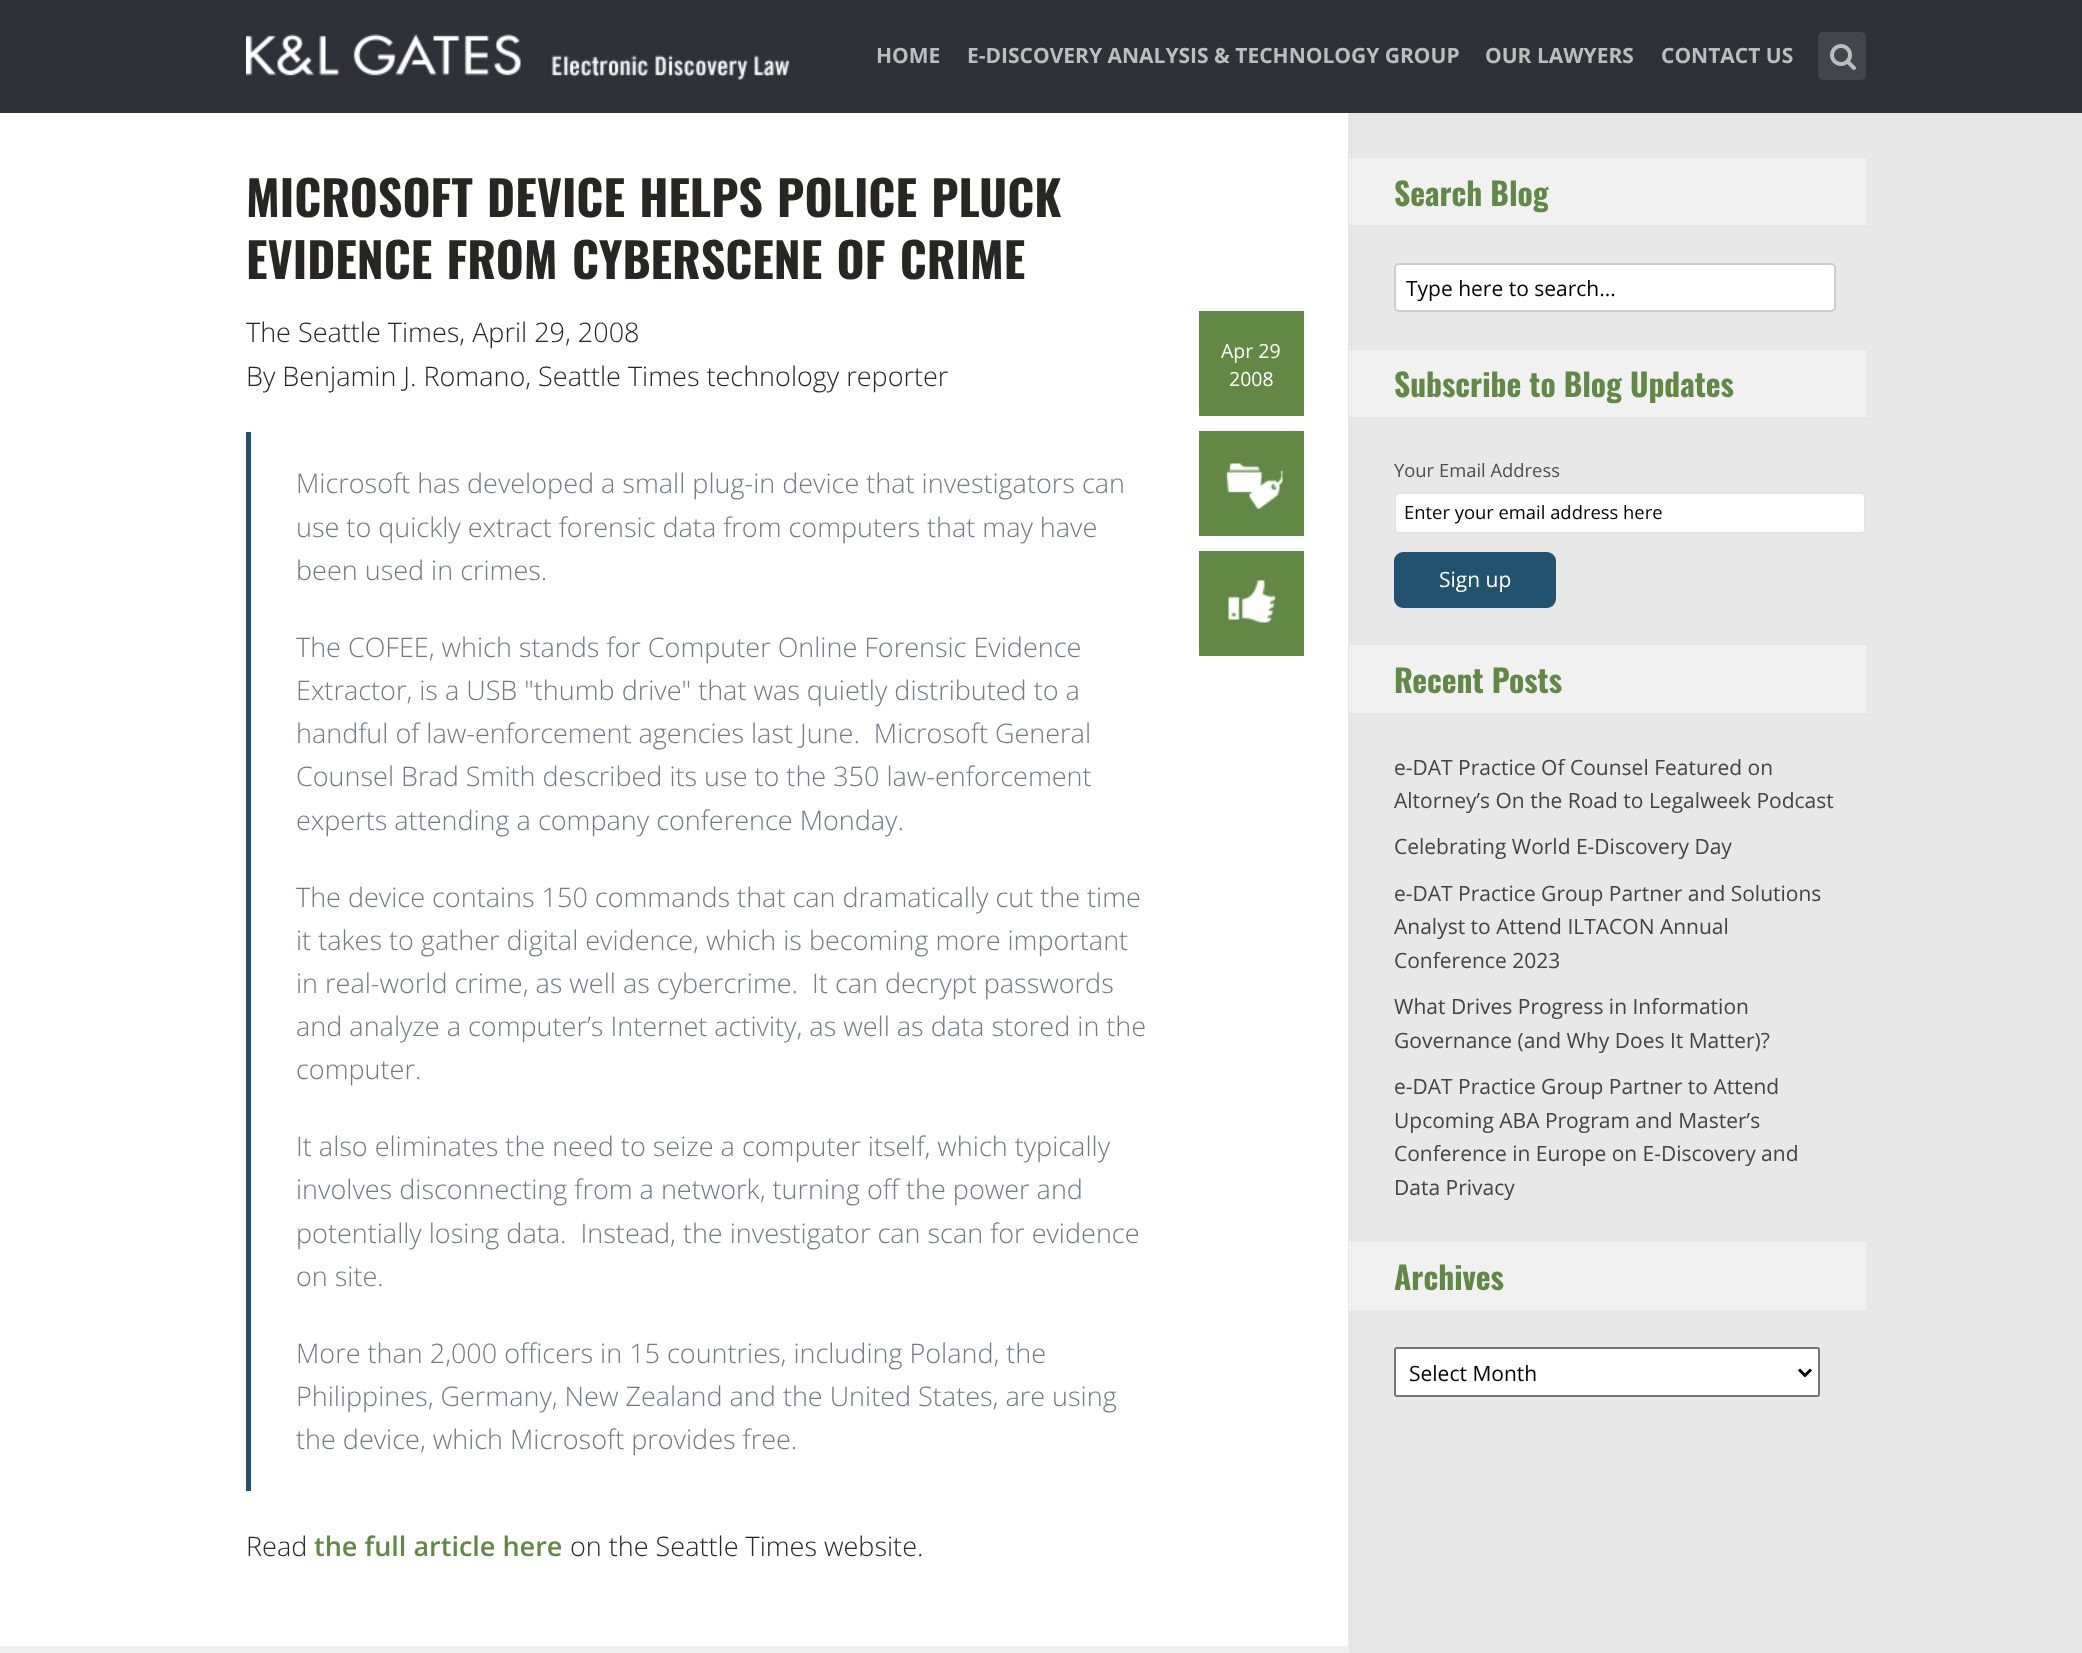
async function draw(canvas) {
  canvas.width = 2082
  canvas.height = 1653
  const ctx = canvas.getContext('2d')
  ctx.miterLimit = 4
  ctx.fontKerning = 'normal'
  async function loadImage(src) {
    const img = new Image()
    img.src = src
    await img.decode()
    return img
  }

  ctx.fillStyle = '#fff'
  ctx.fillRect(0, 0, 2082, 1653)
  ctx.fillStyle = '#2f3038'
  ctx.fillRect(0, 0, 2082, 113)
  ctx.drawImage(await loadImage('image0.png'), 246, 34, 544, 46)
  ctx.font = 'bold 21px Open Sans'
  ctx.fillStyle = '#bdbdbd'
  ctx.fillText('HOME', 876, 63)
  ctx.fillText('E-DISCOVERY ANALYSIS & TECHNOLOGY GROUP', 967, 63)
  ctx.fillText('OUR LAWYERS', 1485, 63)
  ctx.fillText('CONTACT US', 1661, 63)
  ctx.fillStyle = '#44454c'
  ctx.beginPath()
  ctx.roundRect(1818, 32, 48, 48, 5)
  ctx.fill()
  ctx.drawImage(await loadImage('image1.png'), 1830, 44, 26, 26)
  ctx.fillStyle = '#e8e8e8'
  ctx.fillRect(1348, 113, 734, 1540)
  ctx.fillStyle = '#e3e3e3'
  ctx.fillRect(1351, 114, 1, 1539)
  ctx.wordSpacing = '2px'
  ctx.font = 'bold 48px Oswald'
  ctx.fillStyle = '#282525'
  ctx.fillText('MICROSOFT DEVICE HELPS POLICE PLUCK', 246, 217)
  ctx.fillText('EVIDENCE FROM CYBERSCENE OF CRIME', 246, 279)
  ctx.wordSpacing = '0px'
  ctx.font = '300 27px Open Sans'
  ctx.fillText('The Seattle Times, April 29, 2008', 246, 342)
  ctx.fillText('By Benjamin J. Romano, Seattle Times technology reporter', 246, 386)
  ctx.fillStyle = '#23526e'
  ctx.fillRect(246, 432, 5, 1059)
  ctx.fillStyle = '#75778b'
  ctx.fillText('Microsoft has developed a small plug-in device that investigators can', 296, 493)
  ctx.fillText('use to quickly extract forensic data from computers that may have', 296, 537)
  ctx.fillText('been used in crimes.', 296, 580)
  ctx.fillText('The COFEE, which stands for Computer Online Forensic Evidence', 296, 657)
  ctx.fillText('Extractor, is a USB "thumb drive" that was quietly distributed to a', 296, 700)
  ctx.fillText('handful of law-enforcement agencies last June.  Microsoft General', 296, 743)
  ctx.fillText('Counsel Brad Smith described its use to the 350 law-enforcement', 296, 786)
  ctx.fillText('experts attending a company conference Monday.', 296, 830)
  ctx.fillText('The device contains 150 commands that can dramatically cut the time', 296, 907)
  ctx.fillText('it takes to gather digital evidence, which is becoming more important', 296, 950)
  ctx.fillText('in real-world crime, as well as cybercrime.  It can decrypt passwords', 296, 993)
  ctx.fillText('and analyze a computer’s Internet activity, as well as data stored in the', 296, 1036)
  ctx.fillText('computer.', 296, 1079)
  ctx.fillText('It also eliminates the need to seize a computer itself, which typically', 296, 1156)
  ctx.fillText('involves disconnecting from a network, turning off the power and', 296, 1199)
  ctx.fillText('potentially losing data.  Instead, the investigator can scan for evidence', 296, 1243)
  ctx.fillText('on site.', 296, 1286)
  ctx.fillText('More than 2,000 officers in 15 countries, including Poland, the', 296, 1363)
  ctx.fillText('Philippines, Germany, New Zealand and the United States, are using', 296, 1406)
  ctx.fillText('the device, which Microsoft provides free.', 296, 1449)
  ctx.fillStyle = '#282525'
  ctx.fillText('Read', 246, 1556)
  ctx.font = '600 27px Open Sans'
  ctx.fillStyle = '#618845'
  ctx.fillText('the full article here', 314, 1556)
  ctx.font = '300 27px Open Sans'
  ctx.fillStyle = '#282525'
  ctx.fillText('on the Seattle Times website.', 570, 1556)
  ctx.fillStyle = '#618845'
  ctx.fillRect(1199, 311, 105, 105)
  ctx.font = '19.5px Open Sans'
  ctx.fillStyle = '#fff'
  ctx.fillText('Apr 29', 1221, 358)
  ctx.fillText('2008', 1229, 386)
  ctx.fillStyle = '#618845'
  ctx.fillRect(1199, 431, 105, 105)
  ctx.drawImage(await loadImage('image2.png'), 1226, 463, 57, 46)
  ctx.fillRect(1199, 551, 105, 105)
  ctx.drawImage(await loadImage('image3.png'), 1228, 580, 48, 43)
  ctx.fillStyle = '#eee'
  ctx.fillRect(0, 1646, 1349, 7)
  ctx.fillStyle = '#f1f1f1'
  ctx.fillRect(1349, 158, 517, 67)
  ctx.fillStyle = '#ececec'
  ctx.fillRect(1351, 158, 1, 67)
  ctx.font = 'bold 31.5px Oswald'
  ctx.fillStyle = '#618845'
  ctx.fillText('Search Blog', 1394, 206)
  ctx.fillStyle = '#fff'
  ctx.beginPath()
  ctx.roundRect(1395, 264, 440, 47, 4)
  ctx.fill()
  ctx.strokeStyle = '#ccc'
  ctx.lineWidth = 2
  ctx.stroke()
  ctx.font = '21px Open Sans'
  ctx.fillStyle = '#010101'
  ctx.fillText('Type here to search...', 1406, 296)
  ctx.fillStyle = '#f1f1f1'
  ctx.fillRect(1349, 350, 517, 67)
  ctx.fillStyle = '#ececec'
  ctx.fillRect(1351, 350, 1, 67)
  ctx.font = 'bold 31.5px Oswald'
  ctx.fillStyle = '#618845'
  ctx.fillText('Subscribe to Blog Updates', 1394, 397)
  ctx.font = '18.4px Open Sans'
  ctx.fillStyle = '#4d4d4d'
  ctx.fillText('Your Email Address', 1394, 477)
  ctx.fillStyle = '#fff'
  ctx.beginPath()
  ctx.roundRect(1395, 493, 470, 40, 4)
  ctx.fill()
  ctx.strokeStyle = '#e4e4e4'
  ctx.stroke()
  ctx.fillStyle = '#010101'
  ctx.fillText('Enter your email address here', 1404, 519)
  ctx.fillStyle = '#23526e'
  ctx.beginPath()
  ctx.roundRect(1394, 552, 162, 56, 9)
  ctx.fill()
  ctx.font = '21px Open Sans'
  ctx.fillStyle = '#fff'
  ctx.fillText('Sign up', 1439, 587)
  ctx.fillStyle = '#f1f1f1'
  ctx.fillRect(1349, 645, 517, 68)
  ctx.fillStyle = '#ececec'
  ctx.fillRect(1351, 645, 1, 68)
  ctx.font = 'bold 31.5px Oswald'
  ctx.fillStyle = '#618845'
  ctx.fillText('Recent Posts', 1394, 693)
  ctx.font = '21px Open Sans'
  ctx.fillStyle = '#454343'
  ctx.fillText('e-DAT Practice Of Counsel Featured on', 1394, 775)
  ctx.fillText('Altorney’s On the Road to Legalweek Podcast', 1394, 808)
  ctx.fillText('Celebrating World E-Discovery Day', 1394, 854)
  ctx.fillText('e-DAT Practice Group Partner and Solutions', 1394, 901)
  ctx.fillText('Analyst to Attend ILTACON Annual', 1394, 934)
  ctx.fillText('Conference 2023', 1394, 968)
  ctx.fillText('What Drives Progress in Information', 1394, 1014)
  ctx.fillText('Governance (and Why Does It Matter)?', 1394, 1048)
  ctx.fillText('e-DAT Practice Group Partner to Attend', 1394, 1094)
  ctx.fillText('Upcoming ABA Program and Master’s', 1394, 1128)
  ctx.fillText('Conference in Europe on E-Discovery and', 1394, 1161)
  ctx.fillText('Data Privacy', 1394, 1195)
  ctx.fillStyle = '#f1f1f1'
  ctx.fillRect(1349, 1242, 517, 68)
  ctx.fillStyle = '#ececec'
  ctx.fillRect(1351, 1242, 1, 68)
  ctx.font = 'bold 31.5px Oswald'
  ctx.fillStyle = '#618845'
  ctx.fillText('Archives', 1394, 1290)
  ctx.fillStyle = '#fff'
  ctx.beginPath()
  ctx.roundRect(1395, 1348, 424, 48, 2)
  ctx.fill()
  ctx.strokeStyle = '#767676'
  ctx.stroke()
  ctx.beginPath()
  ctx.moveTo(1799, 1369.5)
  ctx.lineTo(1805, 1375.5)
  ctx.lineTo(1811, 1369.5)
  ctx.strokeStyle = '#000'
  ctx.lineWidth = 3
  ctx.stroke()
  ctx.font = '21px Open Sans'
  ctx.fillStyle = '#010101'
  ctx.fillText('Select Month', 1409, 1381)
}

draw(document.querySelector('canvas'))
